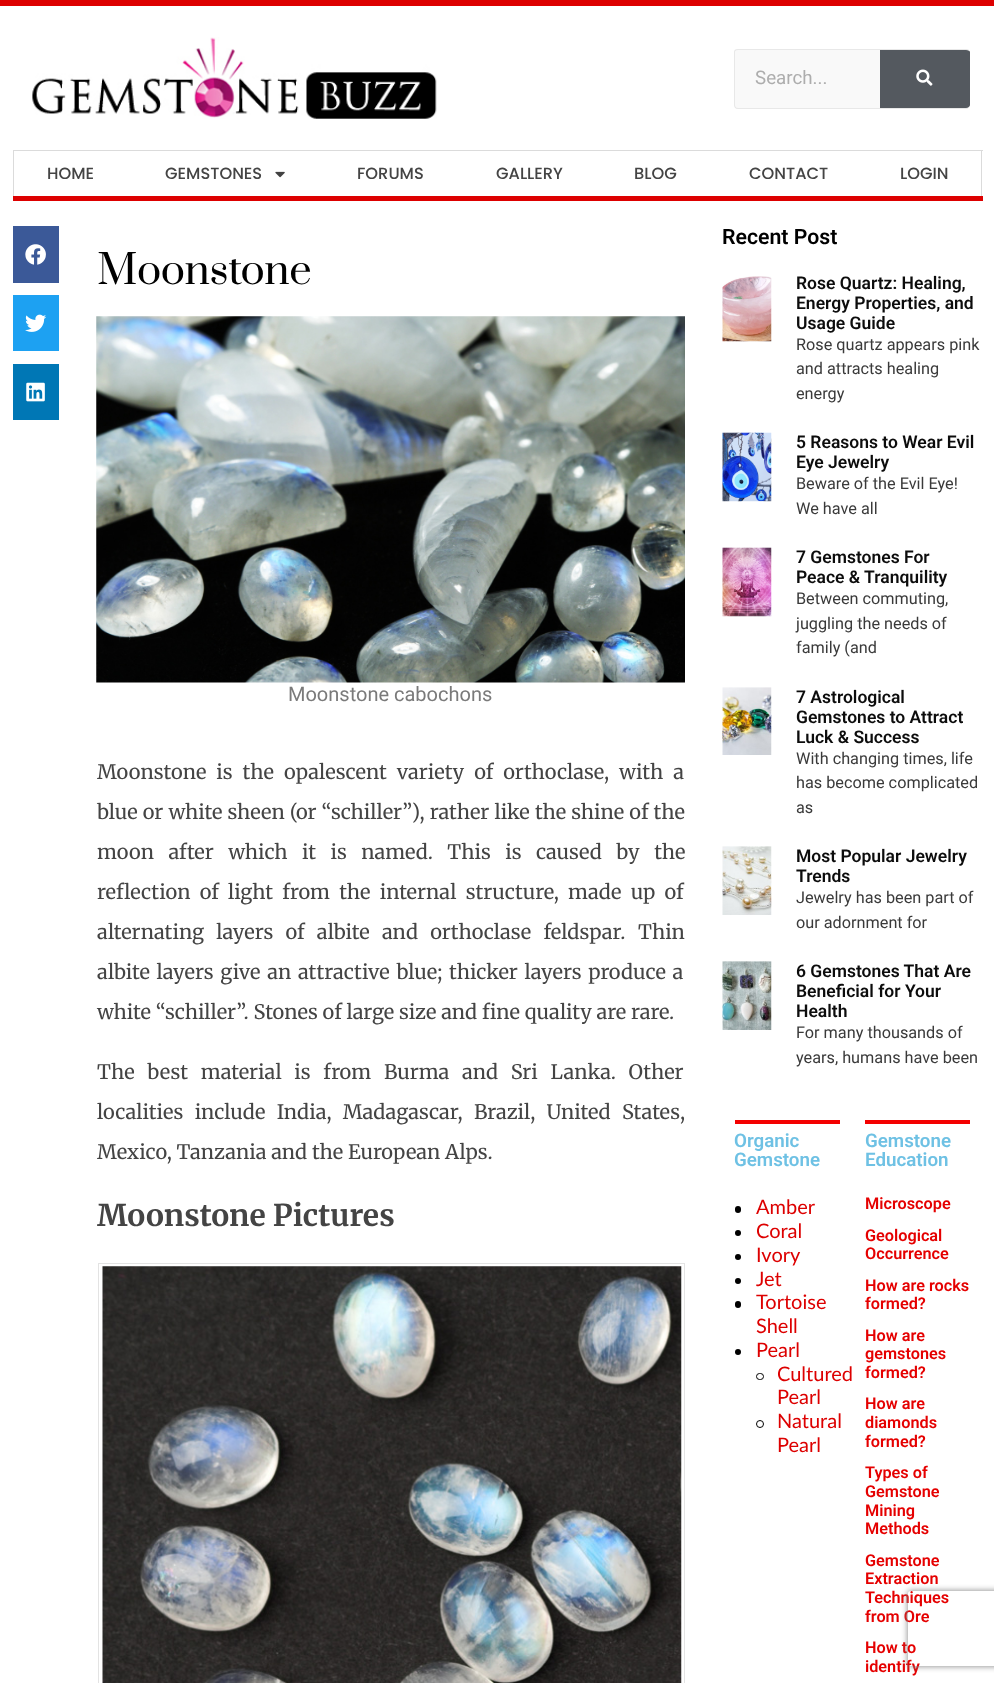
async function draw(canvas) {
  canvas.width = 994
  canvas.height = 1683
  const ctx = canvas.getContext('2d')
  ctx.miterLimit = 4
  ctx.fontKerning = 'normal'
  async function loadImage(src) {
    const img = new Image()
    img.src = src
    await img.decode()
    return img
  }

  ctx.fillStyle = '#fff'
  ctx.fillRect(0, 0, 994, 1683)
  ctx.fillStyle = '#d00'
  ctx.fillRect(0, 0, 994, 6)
  ctx.drawImage(await loadImage('image0.png'), 32, 37, 405, 82)
  ctx.fillStyle = '#f9f9f9'
  ctx.beginPath()
  ctx.moveTo(738, 50)
  ctx.lineTo(966, 50)
  ctx.bezierCurveTo(968, 50, 970, 51, 970, 52)
  ctx.lineTo(970, 105)
  ctx.bezierCurveTo(970, 106, 968, 108, 966, 108)
  ctx.lineTo(738, 108)
  ctx.bezierCurveTo(736, 108, 735, 106, 735, 105)
  ctx.lineTo(735, 52)
  ctx.bezierCurveTo(735, 51, 736, 50, 738, 50)
  ctx.closePath()
  ctx.fill()
  ctx.fillStyle = '#e8e8e8'
  ctx.beginPath()
  ctx.moveTo(738, 49)
  ctx.lineTo(966, 49)
  ctx.bezierCurveTo(968, 49, 970, 50, 970, 52)
  ctx.lineTo(970, 105)
  ctx.bezierCurveTo(970, 107, 968, 109, 966, 109)
  ctx.lineTo(738, 109)
  ctx.bezierCurveTo(735, 109, 734, 107, 734, 105)
  ctx.lineTo(734, 52)
  ctx.bezierCurveTo(734, 50, 735, 49, 738, 49)
  ctx.closePath()
  ctx.moveTo(738, 50)
  ctx.lineTo(966, 50)
  ctx.bezierCurveTo(968, 50, 970, 51, 970, 52)
  ctx.lineTo(970, 105)
  ctx.bezierCurveTo(970, 106, 968, 108, 966, 108)
  ctx.lineTo(738, 108)
  ctx.bezierCurveTo(736, 108, 735, 106, 735, 105)
  ctx.lineTo(735, 52)
  ctx.bezierCurveTo(735, 51, 736, 50, 738, 50)
  ctx.closePath()
  ctx.fill('evenodd')
  ctx.font = '18.75px Roboto'
  ctx.fillStyle = '#adadad'
  ctx.fillText('Search...', 755, 84)
  ctx.fillStyle = '#54595f'
  ctx.beginPath()
  ctx.moveTo(880, 50)
  ctx.lineTo(880, 108)
  ctx.lineTo(966, 108)
  ctx.bezierCurveTo(968, 108, 970, 106, 970, 105)
  ctx.lineTo(970, 52)
  ctx.bezierCurveTo(970, 51, 968, 50, 966, 50)
  ctx.closePath()
  ctx.fill()
  ctx.drawImage(await loadImage('image1.png'), 916, 69, 17, 17)
  ctx.fillStyle = '#d00'
  ctx.fillRect(13, 196, 970, 5)
  ctx.fillStyle = '#dbdbdb'
  ctx.fillRect(13, 150, 970, 1)
  ctx.fillRect(981, 150, 1, 46)
  ctx.fillRect(13, 150, 1, 46)
  ctx.font = '500 16.25px Poppins'
  ctx.fillStyle = '#444'
  ctx.fillText('HOME', 47, 179)
  ctx.fillText('GEMSTONES', 165, 179)
  ctx.drawImage(await loadImage('image2.png'), 275, 171, 10, 7)
  ctx.fillText('FORUMS', 357, 179)
  ctx.fillText('GALLERY', 496, 179)
  ctx.fillText('BLOG', 634, 179)
  ctx.fillText('CONTACT', 749, 179)
  ctx.fillText('LOGIN', 900, 179)
  ctx.fillStyle = '#3b5998'
  ctx.fillRect(13, 226, 46, 57)
  ctx.drawImage(await loadImage('image3.png'), 25, 244, 21, 21)
  ctx.fillStyle = '#1da1f2'
  ctx.fillRect(13, 295, 46, 56)
  ctx.drawImage(await loadImage('image4.png'), 25, 314, 22, 18)
  ctx.fillStyle = '#0077b5'
  ctx.fillRect(13, 364, 46, 56)
  ctx.drawImage(await loadImage('image5.png'), 26, 382, 19, 20)
  ctx.letterSpacing = '-0.4px'
  ctx.font = '40px Prata'
  ctx.fillStyle = '#000'
  ctx.fillText('Moonstone', 97, 284)
  ctx.drawImage(await loadImage('image6.png'), 96, 316, 589, 367)
  ctx.letterSpacing = '0px'
  ctx.font = '20px Roboto'
  ctx.fillStyle = '#7a7a7a'
  ctx.fillText('Moonstone cabochons', 288, 701)
  ctx.wordSpacing = '5.25px'
  ctx.font = '20px Merriweather'
  ctx.fillStyle = '#444'
  ctx.fillText('Moonstone is the opalescent variety of orthoclase, with a', 97, 779)
  ctx.wordSpacing = '0.4px'
  ctx.fillText('blue or white sheen (or “schiller”), rather like the shine of the', 97, 819)
  ctx.wordSpacing = '9.75px'
  ctx.fillText('moon after which it is named. This is caused by the', 97, 859)
  ctx.wordSpacing = '4.5px'
  ctx.fillText('reflection of light from the internal structure, made up of', 97, 899)
  ctx.wordSpacing = '7.5px'
  ctx.fillText('alternating layers of albite and orthoclase feldspar.', 97, 939)
  ctx.wordSpacing = '0px'
  ctx.fillText('Thin', 638, 939)
  ctx.wordSpacing = '2px'
  ctx.fillText('albite layers give an attractive blue; thicker layers produce a', 97, 979)
  ctx.wordSpacing = '0px'
  ctx.fillText('white “schiller”. Stones of large size and fine quality are rare.', 97, 1019)
  ctx.wordSpacing = '8px'
  ctx.fillText('The best material is from Burma and Sri Lanka. Other', 97, 1079)
  ctx.wordSpacing = '6.5px'
  ctx.fillText('localities include India, Madagascar, Brazil, United States,', 97, 1119)
  ctx.wordSpacing = '0px'
  ctx.fillText('Mexico, Tanzania and the European Alps.', 97, 1159)
  ctx.font = 'bold 30px Merriweather'
  ctx.fillText('Moonstone Pictures', 97, 1226)
  ctx.strokeStyle = '#e3e3e3'
  ctx.strokeRect(98.5, 1263.5, 586, 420)
  ctx.drawImage(await loadImage('image7.png'), 102, 1266, 580, 417)
  ctx.font = '600 21.25px Roboto'
  ctx.fillStyle = '#000'
  ctx.fillText('Recent Post', 722, 244)
  ctx.drawImage(await loadImage('image8.png'), 722, 276, 50, 66)
  ctx.font = '600 17.5px Roboto'
  ctx.fillStyle = '#0c0c0c'
  ctx.fillText('Rose Quartz: Healing,', 796, 289)
  ctx.fillText('Energy Properties, and', 796, 309)
  ctx.fillText('Usage Guide', 796, 329)
  ctx.font = '16.25px Roboto'
  ctx.fillStyle = '#3a3a3a'
  ctx.fillText('Rose quartz appears pink', 796, 350)
  ctx.fillText('and attracts healing', 796, 374)
  ctx.fillText('energy', 796, 399)
  ctx.drawImage(await loadImage('image9.png'), 722, 432, 50, 70)
  ctx.font = '600 17.5px Roboto'
  ctx.fillStyle = '#0c0c0c'
  ctx.fillText('5 Reasons to Wear Evil', 796, 448)
  ctx.fillText('Eye Jewelry', 796, 468)
  ctx.font = '16.25px Roboto'
  ctx.fillStyle = '#3a3a3a'
  ctx.fillText('Beware of the Evil Eye!', 796, 489)
  ctx.fillText('We have all', 796, 514)
  ctx.drawImage(await loadImage('image10.png'), 722, 547, 50, 70)
  ctx.font = '600 17.5px Roboto'
  ctx.fillStyle = '#0c0c0c'
  ctx.fillText('7 Gemstones For', 796, 563)
  ctx.fillText('Peace & Tranquility', 796, 583)
  ctx.font = '16.25px Roboto'
  ctx.fillStyle = '#3a3a3a'
  ctx.fillText('Between commuting,', 796, 604)
  ctx.fillText('juggling the needs of', 796, 629)
  ctx.fillText('family (and', 796, 653)
  ctx.drawImage(await loadImage('image11.png'), 722, 687, 50, 68)
  ctx.font = '600 17.5px Roboto'
  ctx.fillStyle = '#0c0c0c'
  ctx.fillText('7 Astrological', 796, 703)
  ctx.fillText('Gemstones to Attract', 796, 723)
  ctx.fillText('Luck & Success', 796, 743)
  ctx.font = '16.25px Roboto'
  ctx.fillStyle = '#3a3a3a'
  ctx.fillText('With changing times, life', 796, 764)
  ctx.fillText('has become complicated', 796, 788)
  ctx.fillText('as', 796, 813)
  ctx.drawImage(await loadImage('image12.png'), 722, 846, 50, 69)
  ctx.font = '600 17.5px Roboto'
  ctx.fillStyle = '#0c0c0c'
  ctx.fillText('Most Popular Jewelry', 796, 862)
  ctx.fillText('Trends', 796, 882)
  ctx.font = '16.25px Roboto'
  ctx.fillStyle = '#3a3a3a'
  ctx.fillText('Jewelry has been part of', 796, 903)
  ctx.fillText('our adornment for', 796, 928)
  ctx.drawImage(await loadImage('image13.png'), 722, 961, 50, 69)
  ctx.font = '600 17.5px Roboto'
  ctx.fillStyle = '#0c0c0c'
  ctx.fillText('6 Gemstones That Are', 796, 977)
  ctx.fillText('Beneficial for Your', 796, 997)
  ctx.fillText('Health', 796, 1017)
  ctx.font = '16.25px Roboto'
  ctx.fillStyle = '#3a3a3a'
  ctx.fillText('For many thousands of', 796, 1038)
  ctx.fillText('years, humans have been', 796, 1063)
  ctx.fillStyle = '#f40000'
  ctx.fillRect(735, 1120, 105, 4)
  ctx.font = '600 18.75px Roboto'
  ctx.fillStyle = '#6ec1e4'
  ctx.fillText('Organic', 734, 1147)
  ctx.fillText('Gemstone', 734, 1166)
  ctx.fillStyle = '#000'
  ctx.beginPath()
  ctx.roundRect(735, 1206, 6, 7, 3)
  ctx.fill()
  ctx.font = '20px Lato'
  ctx.fillStyle = '#d00'
  ctx.fillText('Amber', 756, 1214)
  ctx.fillStyle = '#000'
  ctx.beginPath()
  ctx.arc(738, 1233, 3, 0, 2 * Math.PI)
  ctx.fill()
  ctx.fillStyle = '#d00'
  ctx.fillText('Coral', 756, 1238)
  ctx.fillStyle = '#000'
  ctx.beginPath()
  ctx.arc(738, 1257, 3, 0, 2 * Math.PI)
  ctx.fill()
  ctx.fillStyle = '#d00'
  ctx.fillText('Ivory', 756, 1262)
  ctx.fillStyle = '#000'
  ctx.beginPath()
  ctx.arc(738, 1281, 3, 0, 2 * Math.PI)
  ctx.fill()
  ctx.fillStyle = '#d00'
  ctx.fillText('Jet', 756, 1286)
  ctx.fillStyle = '#000'
  ctx.beginPath()
  ctx.roundRect(735, 1301, 6, 7, 3)
  ctx.fill()
  ctx.fillStyle = '#d00'
  ctx.fillText('Tortoise', 756, 1309)
  ctx.fillText('Shell', 756, 1333)
  ctx.fillStyle = '#000'
  ctx.beginPath()
  ctx.arc(738, 1352, 3, 0, 2 * Math.PI)
  ctx.fill()
  ctx.fillStyle = '#d00'
  ctx.fillText('Pearl', 756, 1357)
  ctx.beginPath()
  ctx.roundRect(756.5, 1373.5, 7, 6, 3)
  ctx.strokeStyle = '#000'
  ctx.stroke()
  ctx.fillText('Cultured', 777, 1381)
  ctx.fillText('Pearl', 777, 1404)
  ctx.beginPath()
  ctx.arc(760, 1424, 3.5, 0, 2 * Math.PI)
  ctx.stroke()
  ctx.fillText('Natural', 777, 1428)
  ctx.fillText('Pearl', 777, 1452)
  ctx.fillStyle = '#f40000'
  ctx.fillRect(865, 1120, 105, 4)
  ctx.font = '600 18.75px Roboto'
  ctx.fillStyle = '#6ec1e4'
  ctx.fillText('Gemstone', 865, 1147)
  ctx.fillText('Education', 865, 1166)
  ctx.font = '600 16.25px Roboto'
  ctx.fillStyle = '#e50000'
  ctx.fillText('Microscope', 865, 1209)
  ctx.fillText('Geological', 865, 1241)
  ctx.fillText('Occurrence', 865, 1259)
  ctx.fillText('How are rocks', 865, 1291)
  ctx.fillText('formed?', 865, 1309)
  ctx.fillText('How are', 865, 1341)
  ctx.fillText('gemstones', 865, 1359)
  ctx.fillText('formed?', 865, 1378)
  ctx.fillText('How are', 865, 1409)
  ctx.fillText('diamonds', 865, 1428)
  ctx.fillText('formed?', 865, 1447)
  ctx.fillText('Types of', 865, 1478)
  ctx.fillText('Gemstone', 865, 1497)
  ctx.fillText('Mining', 865, 1516)
  ctx.fillText('Methods', 865, 1534)
  ctx.fillText('Gemstone', 865, 1566)
  ctx.fillText('Extraction', 865, 1584)
  ctx.fillText('Techniques', 865, 1603)
  ctx.fillText('from Ore', 865, 1622)
  ctx.fillText('How to', 865, 1653)
  ctx.fillText('identify', 865, 1672)
  ctx.save()
  ctx.beginPath()
  ctx.moveTo(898, 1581)
  ctx.lineTo(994, 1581)
  ctx.lineTo(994, 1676)
  ctx.lineTo(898, 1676)
  ctx.closePath()
  ctx.moveTo(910.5, 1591)
  ctx.lineTo(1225.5, 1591)
  ctx.bezierCurveTo(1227, 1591, 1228, 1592, 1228, 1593.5)
  ctx.lineTo(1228, 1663.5)
  ctx.bezierCurveTo(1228, 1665, 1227, 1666, 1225.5, 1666)
  ctx.lineTo(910.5, 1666)
  ctx.bezierCurveTo(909, 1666, 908, 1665, 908, 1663.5)
  ctx.lineTo(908, 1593.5)
  ctx.bezierCurveTo(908, 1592, 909, 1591, 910.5, 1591)
  ctx.closePath()
  ctx.clip('evenodd')
  ctx.fillStyle = '#808080'
  ctx.filter = 'blur(3px)'
  ctx.beginPath()
  ctx.roundRect(908, 1591, 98, 75, 2.5)
  ctx.fill()
  ctx.filter = 'none'
  ctx.restore()
}

draw(document.querySelector('canvas'))
